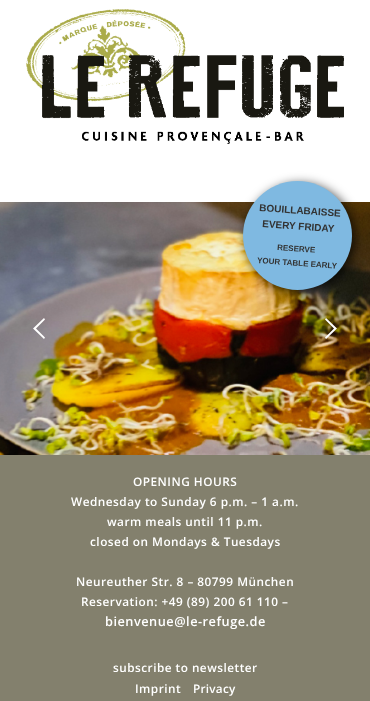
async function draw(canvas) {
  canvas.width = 370
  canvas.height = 701
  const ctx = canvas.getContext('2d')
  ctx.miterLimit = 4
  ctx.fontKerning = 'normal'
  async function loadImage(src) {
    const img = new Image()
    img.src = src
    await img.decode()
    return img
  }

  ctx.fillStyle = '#fff'
  ctx.fillRect(0, 0, 370, 701)
  ctx.drawImage(await loadImage('image0.png'), 26, 9, 318, 135)
  ctx.drawImage(await loadImage('image1.png'), 0, 202, 370, 253)
  ctx.beginPath()
  ctx.moveTo(33, 328.5)
  ctx.lineTo(44, 318)
  ctx.lineTo(45, 319.5)
  ctx.lineTo(36, 328.5)
  ctx.lineTo(45, 337.5)
  ctx.lineTo(44, 339)
  ctx.closePath()
  ctx.fill()
  ctx.beginPath()
  ctx.moveTo(337, 328.5)
  ctx.lineTo(326, 318)
  ctx.lineTo(325, 319.5)
  ctx.lineTo(334, 328.5)
  ctx.lineTo(325, 337.5)
  ctx.lineTo(326, 339)
  ctx.closePath()
  ctx.fill()
  ctx.fillStyle = '#000000bf'
  ctx.filter = 'blur(5.5px)'
  ctx.beginPath()
  ctx.roundRect(246, 184, 109, 109, 54.5)
  ctx.fill()
  ctx.filter = 'none'
  ctx.fillStyle = '#7fb9e1'
  ctx.beginPath()
  ctx.arc(297.5, 235.5, 54.5, 0, 2 * Math.PI)
  ctx.fill()
  ctx.font = 'bold 10px Liberation Sans'
  ctx.fillStyle = '#333'
  ctx.save()
  ctx.translate(259, 211)
  ctx.rotate(4 * Math.PI / 180)
  ctx.fillText('BOUILLABAISSE', 0, 0)
  ctx.restore()
  ctx.save()
  ctx.translate(262, 227)
  ctx.rotate(4 * Math.PI / 180)
  ctx.fillText('EVERY FRIDAY', 0, 0)
  ctx.restore()
  ctx.font = 'bold 8px Liberation Sans'
  ctx.save()
  ctx.translate(277, 250)
  ctx.rotate(4 * Math.PI / 180)
  ctx.fillText('RESERVE', 0, 0)
  ctx.restore()
  ctx.save()
  ctx.translate(257, 263)
  ctx.rotate(4 * Math.PI / 180)
  ctx.fillText('YOUR TABLE EARLY', 0, 0)
  ctx.restore()
  ctx.fillStyle = '#83806d'
  ctx.fillRect(0, 455, 370, 246)
  ctx.letterSpacing = '0.5px'
  ctx.font = '600 11.8px Open Sans'
  ctx.fillStyle = '#fff'
  ctx.fillText('OPENING HOURS', 133, 486)
  ctx.fillText('Wednesday to Sunday 6 p.m. – 1 a.m.', 71, 506)
  ctx.fillText('warm meals until 11 p.m.', 107, 526)
  ctx.fillText('closed on Mondays & Tuesdays', 90, 546)
  ctx.fillText('Neureuther Str. 8 – 80799 München', 76, 586)
  ctx.fillText('Reservation: +49 (89) 200 61 110 –', 81, 606)
  ctx.font = '600 12.75px Open Sans'
  ctx.fillText('bienvenue@le-refuge.de', 105, 626)
  ctx.font = '600 11.75px Open Sans'
  ctx.fillText('subscribe to newsletter', 113, 672)
  ctx.font = '600 11.8px Open Sans'
  ctx.fillText('Imprint', 135, 693)
  ctx.letterSpacing = '0.25px'
  ctx.font = '600 11.75px Open Sans'
  ctx.fillText('Privacy', 193, 693)
}

draw(document.querySelector('canvas'))
